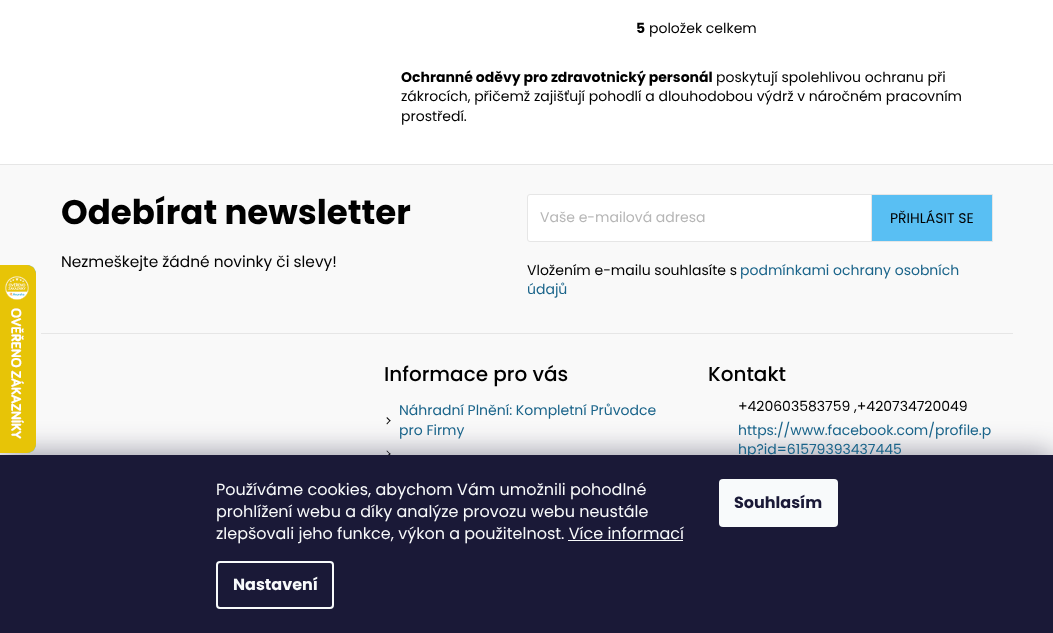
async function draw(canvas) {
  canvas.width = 1053
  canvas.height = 633
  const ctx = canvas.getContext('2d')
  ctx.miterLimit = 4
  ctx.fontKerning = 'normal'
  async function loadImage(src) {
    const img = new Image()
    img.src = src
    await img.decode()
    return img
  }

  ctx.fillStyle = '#fff'
  ctx.fillRect(0, 0, 1053, 633)
  ctx.fillStyle = '#f9f9f9'
  ctx.fillRect(0, 165, 1053, 290)
  ctx.fillStyle = '#000'
  ctx.beginPath()
  ctx.moveTo(386.5, 418)
  ctx.lineTo(387, 417)
  ctx.lineTo(390.5, 420.5)
  ctx.lineTo(390, 421.5)
  ctx.closePath()
  ctx.fill()
  ctx.beginPath()
  ctx.moveTo(386.5, 423.5)
  ctx.lineTo(390, 420)
  ctx.lineTo(390.5, 420.5)
  ctx.lineTo(387, 424.5)
  ctx.closePath()
  ctx.moveTo(386.5, 451)
  ctx.lineTo(387, 450.5)
  ctx.lineTo(390.5, 454)
  ctx.lineTo(390, 454.5)
  ctx.closePath()
  ctx.fill()
  ctx.beginPath()
  ctx.moveTo(386.5, 456.5)
  ctx.lineTo(390, 453)
  ctx.lineTo(390.5, 454)
  ctx.lineTo(387, 457.5)
  ctx.closePath()
  ctx.fill()
  ctx.fillStyle = '#1b193980'
  ctx.filter = 'blur(15px)'
  ctx.beginPath()
  ctx.rect(0, 455, 1053, 178)
  ctx.fill()
  ctx.filter = 'none'
  ctx.drawImage(await loadImage('image0.png'), 0, 265, 36, 188)
  ctx.font = 'bold 14px Poppins'
  ctx.fillStyle = '#000'
  ctx.fillText('5', 636, 33)
  ctx.font = '14px Poppins'
  ctx.fillText('položek celkem', 649, 33)
  ctx.font = 'bold 14px Poppins'
  ctx.fillText('Ochranné oděvy pro zdravotnický personál', 401, 82)
  ctx.font = '14px Poppins'
  ctx.fillText('poskytují spolehlivou ochranu při', 716, 82)
  ctx.fillText('zákrocích, přičemž zajišťují pohodlí a dlouhodobou výdrž v náročném pracovním', 401, 101)
  ctx.fillText('prostředí.', 401, 121)
  ctx.fillStyle = '#e6e6e6'
  ctx.fillRect(0, 164, 1053, 1)
  ctx.fillRect(41, 333, 972, 1)
  ctx.font = 'bold 34px Poppins'
  ctx.fillStyle = '#000'
  ctx.fillText('Odebírat newsletter', 61, 224)
  ctx.font = '15.4px Poppins'
  ctx.fillText('Nezmeškejte žádné novinky či slevy!', 61, 267)
  ctx.fillStyle = '#fff'
  ctx.beginPath()
  ctx.roundRect(527.5, 194.5, 465, 47, 2.5)
  ctx.fill()
  ctx.strokeStyle = '#e6e6e6'
  ctx.stroke()
  ctx.font = '14px Poppins'
  ctx.fillStyle = '#b6b6b6'
  ctx.fillText('Vaše e-mailová adresa', 540, 222)
  ctx.fillStyle = '#59bff3'
  ctx.beginPath()
  ctx.rect(871.5, 194.5, 121, 47)
  ctx.fill()
  ctx.stroke()
  ctx.fillStyle = '#000'
  ctx.fillText('PŘIHLÁSIT SE', 890, 223)
  ctx.fillText('Vložením e-mailu souhlasíte s', 527, 275)
  ctx.fillStyle = '#1a648a'
  ctx.fillText('podmínkami ochrany osobních', 740, 275)
  ctx.fillText('údajů', 527, 294)
  ctx.font = '500 20px Poppins'
  ctx.fillStyle = '#000'
  ctx.fillText('Informace pro vás', 384, 381)
  ctx.font = '14px Poppins'
  ctx.fillStyle = '#1a648a'
  ctx.fillText('Náhradní Plnění: Kompletní Průvodce', 399, 415)
  ctx.fillText('pro Firmy', 399, 435)
  ctx.font = '500 20px Poppins'
  ctx.fillStyle = '#000'
  ctx.fillText('Kontakt', 708, 381)
  ctx.font = '14px Poppins'
  ctx.fillText('+420603583759 ,+420734720049', 738, 411)
  ctx.fillStyle = '#1a648a'
  ctx.fillText('https://www.facebook.com/profile.p', 738, 435)
  ctx.fillText('hp?id=61579393437445', 738, 454)
  ctx.fillStyle = '#1a1937'
  ctx.fillRect(0, 455, 1053, 178)
  ctx.font = '16px Poppins'
  ctx.fillStyle = '#f8fafb'
  ctx.fillText('Používáme cookies, abychom Vám umožnili pohodlné', 216, 495)
  ctx.fillText('prohlížení webu a díky analýze provozu webu neustále', 216, 517)
  ctx.fillText('zlepšovali jeho funkce, výkon a použitelnost. Více informací', 216, 539)
  ctx.fillRect(568, 540, 115, 1)
  ctx.beginPath()
  ctx.roundRect(217, 562, 116, 46, 3)
  ctx.strokeStyle = '#f8fafb'
  ctx.lineWidth = 2
  ctx.stroke()
  ctx.font = 'bold 16px Poppins'
  ctx.fillText('Nastavení', 233, 590)
  ctx.beginPath()
  ctx.roundRect(719, 479, 119, 48, 4)
  ctx.fill()
  ctx.fillStyle = '#1a1937'
  ctx.fillText('Souhlasím', 734, 508)
}

draw(document.querySelector('canvas'))
